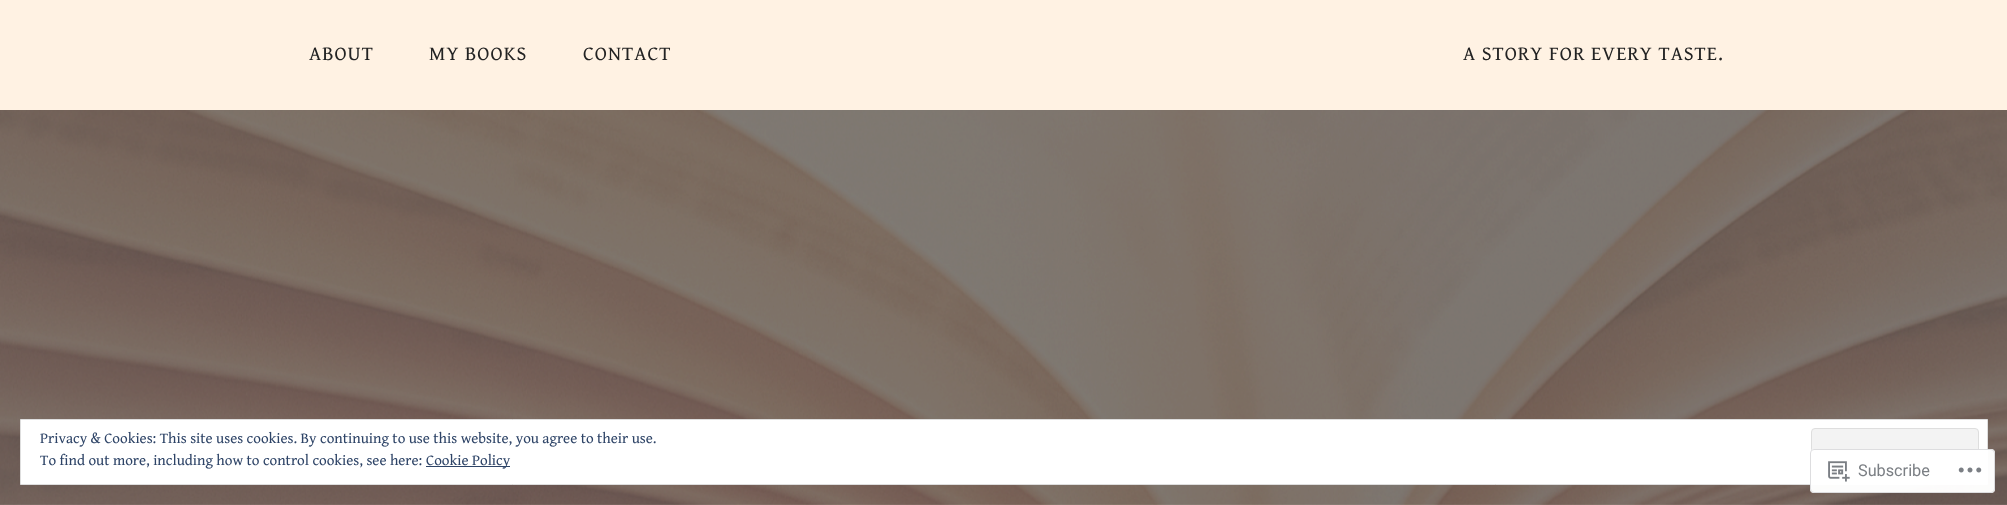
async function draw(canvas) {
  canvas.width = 2007
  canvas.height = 505
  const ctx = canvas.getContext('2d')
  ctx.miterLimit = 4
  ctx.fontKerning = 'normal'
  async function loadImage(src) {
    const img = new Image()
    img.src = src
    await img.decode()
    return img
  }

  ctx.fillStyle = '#fff2e3'
  ctx.fillRect(0, 0, 2007, 505)
  ctx.letterSpacing = '1px'
  ctx.font = '20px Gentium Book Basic'
  ctx.fillStyle = '#232323'
  ctx.fillText('ABOUT', 309, 60)
  ctx.fillText('MY BOOKS', 429, 60)
  ctx.fillText('CONTACT', 583, 60)
  ctx.fillText('A STORY FOR EVERY TASTE.', 1463, 60)
  ctx.drawImage(await loadImage('image0.png'), 0, 110, 2007, 395)
  ctx.fillStyle = '#fff'
  ctx.beginPath()
  ctx.rect(20.5, 419.5, 1967, 65)
  ctx.fill()
  ctx.strokeStyle = '#dedede'
  ctx.stroke()
  ctx.letterSpacing = '0px'
  ctx.font = '15px Gentium Book Basic'
  ctx.fillStyle = '#2e4467'
  ctx.fillText('Privacy & Cookies: This site uses cookies. By continuing to use this website, you agree to their use.', 40, 443)
  ctx.fillStyle = '#f3f3f3'
  ctx.beginPath()
  ctx.roundRect(1811.5, 428.5, 167, 47, 3.5)
  ctx.fill()
  ctx.stroke()
  ctx.fillStyle = '#2e4467'
  ctx.fillText('To find out more, including how to control cookies, see here:', 40, 465)
  ctx.fillRect(426, 466, 84, 1)
  ctx.fillText('Cookie Policy', 426, 465)
  ctx.fillStyle = '#fffffffa'
  ctx.beginPath()
  ctx.roundRect(1810, 449, 185, 44, 4)
  ctx.fill()
  ctx.beginPath()
  ctx.roundRect(1810.5, 449.5, 184, 43, 3.5)
  ctx.strokeStyle = '#dcdcdefa'
  ctx.stroke()
  ctx.drawImage(await loadImage('image1.png'), 1828, 461, 22, 21)
  ctx.font = '16.25px Roboto'
  ctx.fillStyle = '#7b7f84'
  ctx.fillText('Subscribe', 1858, 476)
  ctx.drawImage(await loadImage('image2.png'), 1958, 467, 24, 6)
}

draw(document.querySelector('canvas'))
